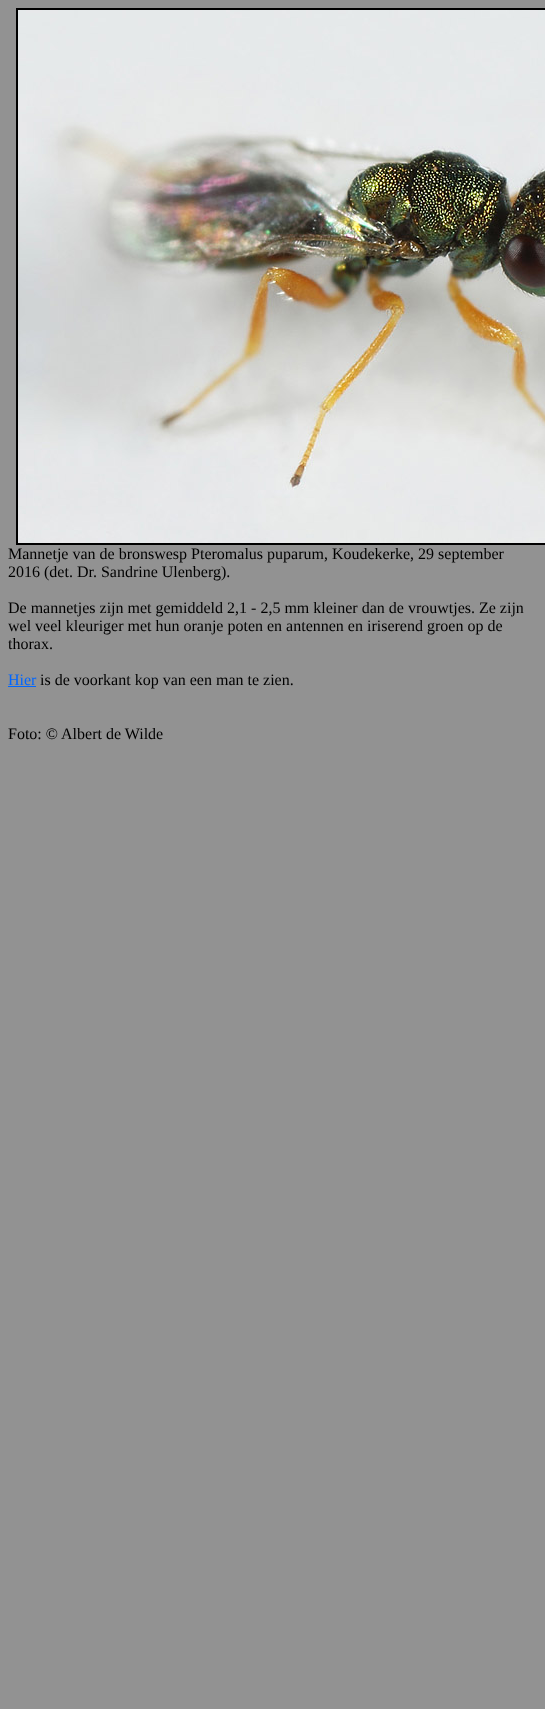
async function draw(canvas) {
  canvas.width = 545
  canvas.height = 1709
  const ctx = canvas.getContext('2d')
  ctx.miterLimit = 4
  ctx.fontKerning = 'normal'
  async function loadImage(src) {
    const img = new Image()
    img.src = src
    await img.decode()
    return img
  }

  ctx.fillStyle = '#929292'
  ctx.fillRect(0, 0, 545, 1709)
  ctx.strokeStyle = '#000'
  ctx.lineWidth = 2
  ctx.strokeRect(17, 9, 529, 535)
  ctx.drawImage(await loadImage('image0.png'), 18, 10, 527, 533)
  ctx.font = '16px Liberation Serif'
  ctx.fillStyle = '#000'
  ctx.fillText('Mannetje van de bronswesp Pteromalus puparum, Koudekerke, 29 september', 8, 559)
  ctx.fillText('2016 (det. Dr. Sandrine Ulenberg).', 8, 577)
  ctx.fillText('De mannetjes zijn met gemiddeld 2,1 - 2,5 mm kleiner dan de vrouwtjes. Ze zijn', 8, 613)
  ctx.fillText('wel veel kleuriger met hun oranje poten en antennen en iriserend groen op de', 8, 631)
  ctx.fillText('thorax.', 8, 649)
  ctx.fillStyle = '#06f'
  ctx.fillText('Hier', 8, 685)
  ctx.fillRect(8, 686, 28, 1)
  ctx.fillStyle = '#000'
  ctx.fillText('is de voorkant kop van een man te zien.', 40, 685)
  ctx.fillText('Foto: © Albert de Wilde', 8, 739)
}

draw(document.querySelector('canvas'))
